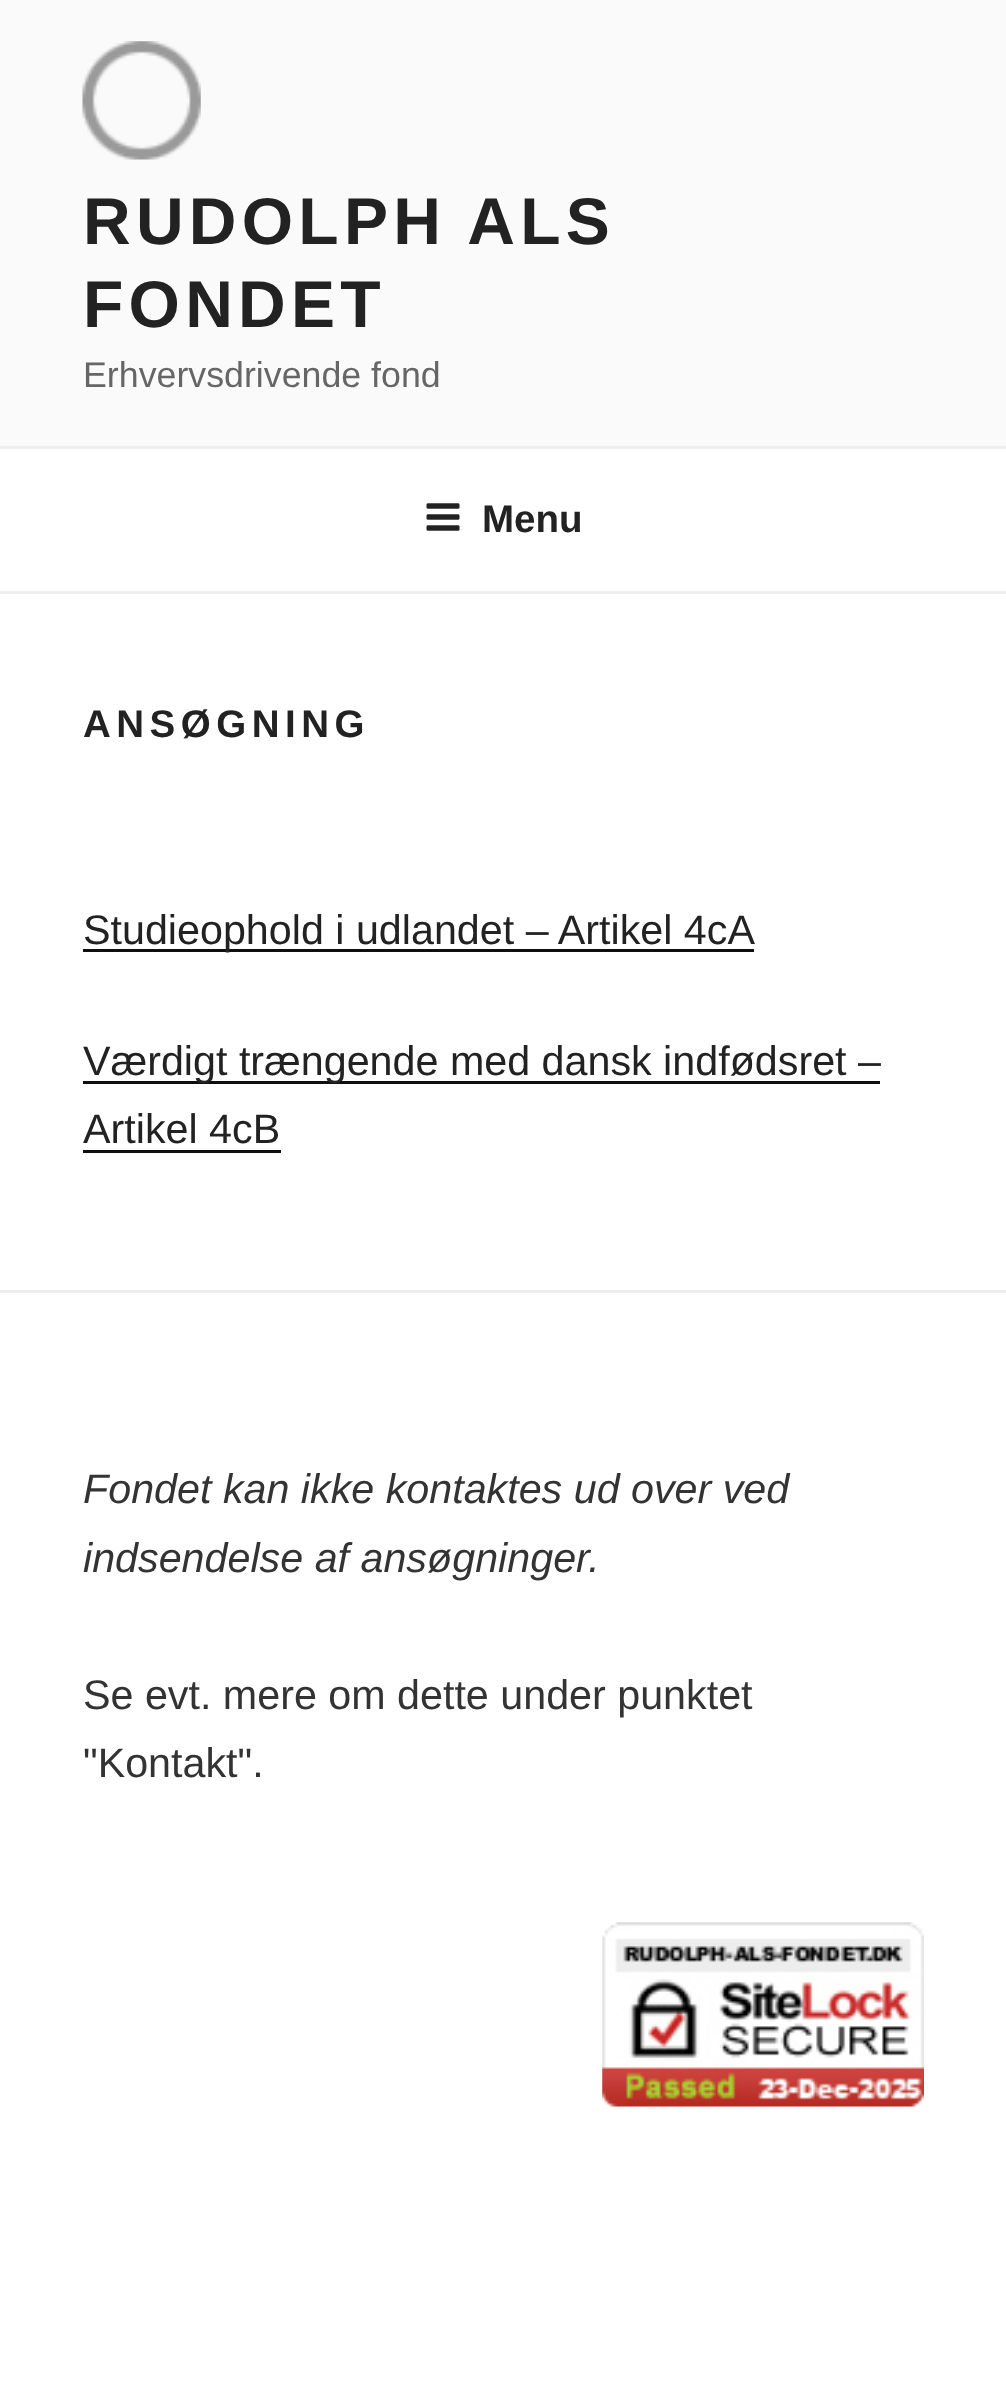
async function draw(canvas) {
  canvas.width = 1006
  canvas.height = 2385
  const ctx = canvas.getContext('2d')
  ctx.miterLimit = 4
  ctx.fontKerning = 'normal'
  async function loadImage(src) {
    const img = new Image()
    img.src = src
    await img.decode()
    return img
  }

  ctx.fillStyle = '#fff'
  ctx.fillRect(0, 0, 1006, 2385)
  ctx.fillStyle = '#fafafa'
  ctx.fillRect(0, 0, 1006, 446)
  ctx.drawImage(await loadImage('image0.png'), 82, 41, 119, 119)
  ctx.letterSpacing = '5.25px'
  ctx.font = 'bold 66px Liberation Sans'
  ctx.fillStyle = '#222'
  ctx.fillText('RUDOLPH ALS', 83, 244)
  ctx.fillText('FONDET', 83, 327)
  ctx.letterSpacing = '0px'
  ctx.font = '35.75px Liberation Sans'
  ctx.fillStyle = '#666'
  ctx.fillText('Erhvervsdrivende fond', 83, 387)
  ctx.fillStyle = '#eee'
  ctx.fillRect(0, 446, 1006, 3)
  ctx.fillRect(0, 591, 1006, 3)
  ctx.drawImage(await loadImage('image1.png'), 426, 503, 34, 28)
  ctx.font = 'bold 38.5px Liberation Sans'
  ctx.fillStyle = '#222'
  ctx.fillText('Menu', 482, 532)
  ctx.letterSpacing = '5.5px'
  ctx.fillText('ANSØGNING', 83, 737)
  ctx.fillStyle = '#0f0f0f'
  ctx.fillRect(83, 949, 671, 3)
  ctx.letterSpacing = '0px'
  ctx.font = '41.25px Liberation Sans'
  ctx.fillStyle = '#222'
  ctx.fillText('Studieophold i udlandet – Artikel 4cA', 83, 944)
  ctx.fillStyle = '#0f0f0f'
  ctx.fillRect(83, 1081, 797, 3)
  ctx.fillStyle = '#222'
  ctx.fillText('Værdigt trængende med dansk indfødsret –', 83, 1075)
  ctx.fillText('Artikel 4cB', 83, 1143)
  ctx.fillStyle = '#0f0f0f'
  ctx.fillRect(83, 1150, 198, 3)
  ctx.fillStyle = '#eee'
  ctx.fillRect(0, 1290, 1006, 3)
  ctx.font = 'italic 41.25px Liberation Sans'
  ctx.fillStyle = '#333'
  ctx.fillText('Fondet kan ikke kontaktes ud over ved', 83, 1503)
  ctx.fillText('indsendelse af ansøgninger.', 83, 1572)
  ctx.font = '41.25px Liberation Sans'
  ctx.fillText('Se evt. mere om dette under punktet', 83, 1709)
  ctx.fillText('"Kontakt".', 83, 1777)
  ctx.drawImage(await loadImage('image2.png'), 602, 1922, 322, 185)
}

draw(document.querySelector('canvas'))
